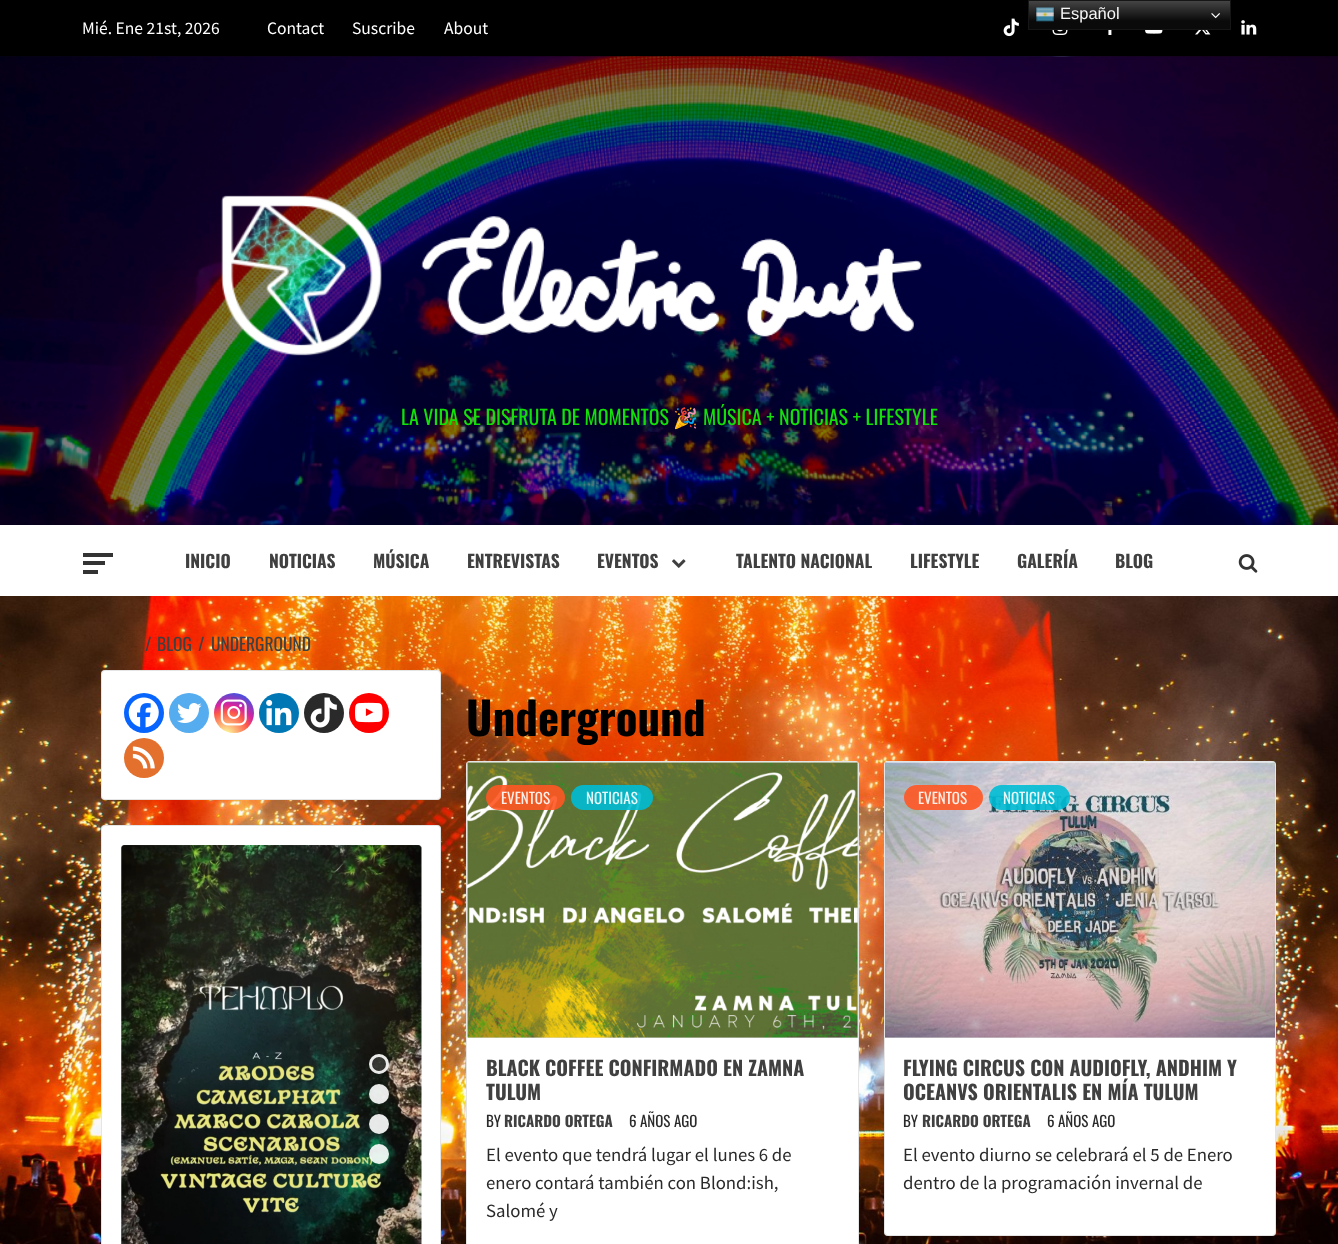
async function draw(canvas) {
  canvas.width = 1338
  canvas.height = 1244
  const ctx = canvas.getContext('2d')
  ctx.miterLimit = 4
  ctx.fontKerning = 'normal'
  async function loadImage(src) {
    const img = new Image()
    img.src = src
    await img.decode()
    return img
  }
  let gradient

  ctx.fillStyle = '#fff'
  ctx.fillRect(0, 0, 1338, 1244)
  ctx.drawImage(await loadImage('image0.png'), 0, 56, 1338, 1188)
  ctx.fillStyle = '#000'
  ctx.fillRect(0, 0, 1338, 56)
  gradient = ctx.createLinearGradient(1129, 0, 1129, 30)
  gradient.addColorStop(0, '#474747')
  gradient.addColorStop(0.7, '#0a0a0a')
  ctx.fillStyle = gradient
  ctx.fillRect(1029, 1, 201, 28)
  ctx.strokeStyle = '#161616'
  ctx.strokeRect(1028.5, 0.5, 202, 29)
  ctx.drawImage(await loadImage('image1.png'), 1035, 7, 20, 15)
  ctx.font = '16.5px Liberation Sans'
  ctx.fillStyle = '#f7f7f7'
  ctx.fillText('Español', 1060, 19)
  ctx.drawImage(await loadImage('image2.png'), 1211, 13, 9, 6)
  ctx.font = '17.5px Source Sans Pro'
  ctx.fillStyle = '#fff'
  ctx.fillText('Mié. Ene 21st, 2026', 82, 34)
  ctx.fillText('Contact', 267, 34)
  ctx.fillText('Suscribe', 352, 34)
  ctx.fillText('About', 444, 34)
  ctx.drawImage(await loadImage('image3.png'), 1003, 18, 16, 19)
  ctx.drawImage(await loadImage('image4.png'), 1052, 30, 16, 5)
  ctx.drawImage(await loadImage('image5.png'), 1108, 30, 4, 5)
  ctx.drawImage(await loadImage('image6.png'), 1145, 30, 18, 4)
  ctx.drawImage(await loadImage('image7.png'), 1195, 30, 16, 5)
  ctx.drawImage(await loadImage('image8.png'), 1241, 20, 16, 15)
  ctx.drawImage(await loadImage('image9.png'), 0, 56, 1338, 469)
  ctx.fillStyle = '#00000080'
  ctx.fillRect(0, 56, 1338, 469)
  ctx.drawImage(await loadImage('image10.png'), 221, 195, 701, 161)
  ctx.font = '20px Oswald'
  ctx.fillStyle = '#13e008'
  ctx.fillText('LA VIDA SE DISFRUTA DE MOMENTOS', 401, 425)
  ctx.font = '20px Noto Color Emoji'
  ctx.fillText('🎉', 673, 425)
  ctx.font = '20px Oswald'
  ctx.fillText('MÚSICA + NOTICIAS + LIFESTYLE', 703, 425)
  ctx.fillStyle = '#fff'
  ctx.fillRect(0, 525, 1338, 71)
  ctx.fillStyle = '#333'
  ctx.fillRect(83, 553, 30, 4)
  ctx.fillRect(83, 561, 22, 4)
  ctx.fillRect(83, 570, 15, 4)
  ctx.font = 'bold 17.5px Oswald'
  ctx.fillStyle = '#404040'
  ctx.fillText('INICIO', 185, 568)
  ctx.fillText('NOTICIAS', 269, 568)
  ctx.fillText('MÚSICA', 373, 568)
  ctx.fillText('ENTREVISTAS', 467, 568)
  ctx.fillText('EVENTOS', 597, 568)
  ctx.drawImage(await loadImage('image11.png'), 672, 559, 14, 9)
  ctx.fillText('TALENTO NACIONAL', 736, 568)
  ctx.fillText('LIFESTYLE', 910, 568)
  ctx.fillText('GALERÍA', 1017, 568)
  ctx.fillText('BLOG', 1115, 568)
  ctx.drawImage(await loadImage('image12.png'), 1238, 554, 20, 19)
  ctx.font = '17.5px Oswald'
  ctx.fillText('/', 145, 651)
  ctx.fillText('BLOG', 157, 651)
  ctx.fillText('/', 198, 651)
  ctx.fillText('UNDERGROUND', 211, 651)
  ctx.fillStyle = '#fff'
  ctx.beginPath()
  ctx.roundRect(101, 670, 340, 130, 4)
  ctx.fill()
  ctx.beginPath()
  ctx.roundRect(101.5, 670.5, 339, 129, 3.5)
  ctx.strokeStyle = '#0001011a'
  ctx.stroke()
  ctx.fillStyle = '#0765fe'
  ctx.beginPath()
  ctx.arc(144, 713, 20, 0, 2 * Math.PI)
  ctx.fill()
  ctx.drawImage(await loadImage('image13.png'), 128, 697, 31, 31)
  ctx.fillStyle = '#55acee'
  ctx.beginPath()
  ctx.arc(189, 713, 20, 0, 2 * Math.PI)
  ctx.fill()
  ctx.drawImage(await loadImage('image14.png'), 177, 703, 25, 20)
  gradient = ctx.createRadialGradient(226, 735, 0, 226, 735, 51)
  gradient.addColorStop(0, '#fdf497')
  gradient.addColorStop(0.05, '#fdf497')
  gradient.addColorStop(0.45, '#fd5949')
  gradient.addColorStop(0.6, '#d6249f')
  gradient.addColorStop(0.9, '#285aeb')
  ctx.fillStyle = gradient
  ctx.beginPath()
  ctx.arc(234, 713, 20, 0, 2 * Math.PI)
  ctx.fill()
  ctx.drawImage(await loadImage('image15.png'), 220, 699, 27, 27)
  ctx.fillStyle = '#0077b5'
  ctx.beginPath()
  ctx.arc(279, 713, 20, 0, 2 * Math.PI)
  ctx.fill()
  ctx.drawImage(await loadImage('image16.png'), 266, 699, 26, 27)
  ctx.fillStyle = '#2a2a2a'
  ctx.beginPath()
  ctx.arc(324, 713, 20, 0, 2 * Math.PI)
  ctx.fill()
  ctx.drawImage(await loadImage('image17.png'), 310, 697, 27, 31)
  ctx.fillStyle = '#f00'
  ctx.beginPath()
  ctx.arc(369, 713, 20, 0, 2 * Math.PI)
  ctx.fill()
  ctx.drawImage(await loadImage('image18.png'), 355, 702, 28, 21)
  ctx.fillStyle = '#e3702d'
  ctx.beginPath()
  ctx.arc(144, 758, 20, 0, 2 * Math.PI)
  ctx.fill()
  ctx.drawImage(await loadImage('image19.png'), 132, 746, 23, 23)
  ctx.fillStyle = '#fff'
  ctx.beginPath()
  ctx.roundRect(101, 825, 340, 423, 4)
  ctx.fill()
  ctx.beginPath()
  ctx.roundRect(101.5, 825.5, 339, 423, 3.5)
  ctx.stroke()
  ctx.drawImage(await loadImage('image20.png'), 121, 845, 301, 399)
  ctx.save()
  ctx.beginPath()
  ctx.moveTo(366, 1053)
  ctx.lineTo(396, 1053)
  ctx.lineTo(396, 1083)
  ctx.lineTo(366, 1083)
  ctx.closePath()
  ctx.moveTo(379, 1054)
  ctx.bezierCurveTo(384.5, 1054, 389, 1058.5, 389, 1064)
  ctx.bezierCurveTo(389, 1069.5, 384.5, 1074, 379, 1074)
  ctx.bezierCurveTo(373.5, 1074, 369, 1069.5, 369, 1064)
  ctx.bezierCurveTo(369, 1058.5, 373.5, 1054, 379, 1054)
  ctx.closePath()
  ctx.clip('evenodd')
  ctx.fillStyle = '#00000066'
  ctx.filter = 'blur(3px)'
  ctx.beginPath()
  ctx.roundRect(376, 1063, 10, 10, 5)
  ctx.fill()
  ctx.filter = 'none'
  ctx.restore()
  ctx.fillStyle = '#b7b4b433'
  ctx.beginPath()
  ctx.arc(379, 1064, 10, 0, 2 * Math.PI)
  ctx.fill()
  ctx.beginPath()
  ctx.arc(379, 1064, 8.5, 0, 2 * Math.PI)
  ctx.strokeStyle = '#ffffffe6'
  ctx.lineWidth = 3
  ctx.stroke()
  ctx.fillStyle = '#ffffffe6'
  ctx.beginPath()
  ctx.arc(379, 1094, 10, 0, 2 * Math.PI)
  ctx.fill()
  ctx.beginPath()
  ctx.arc(379, 1124, 10, 0, 2 * Math.PI)
  ctx.fill()
  ctx.save()
  ctx.beginPath()
  ctx.moveTo(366, 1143)
  ctx.lineTo(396, 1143)
  ctx.lineTo(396, 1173)
  ctx.lineTo(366, 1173)
  ctx.closePath()
  ctx.moveTo(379, 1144)
  ctx.bezierCurveTo(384.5, 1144, 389, 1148.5, 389, 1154)
  ctx.bezierCurveTo(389, 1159.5, 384.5, 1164, 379, 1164)
  ctx.bezierCurveTo(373.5, 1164, 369, 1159.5, 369, 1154)
  ctx.bezierCurveTo(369, 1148.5, 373.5, 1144, 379, 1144)
  ctx.closePath()
  ctx.clip('evenodd')
  ctx.fillStyle = '#00000066'
  ctx.filter = 'blur(3px)'
  ctx.beginPath()
  ctx.roundRect(376, 1153, 10, 10, 5)
  ctx.fill()
  ctx.filter = 'none'
  ctx.restore()
  ctx.beginPath()
  ctx.arc(379, 1154, 10, 0, 2 * Math.PI)
  ctx.fill()
  ctx.font = 'bold 45px Oswald'
  ctx.fillStyle = '#000'
  ctx.fillText('Underground', 466, 736)
  ctx.fillStyle = '#fff'
  ctx.beginPath()
  ctx.roundRect(466, 761, 393, 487, 4)
  ctx.fill()
  ctx.beginPath()
  ctx.roundRect(466.5, 761.5, 392, 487, 3.5)
  ctx.strokeStyle = '#0001011a'
  ctx.lineWidth = 1
  ctx.stroke()
  ctx.fillStyle = '#d7d7d7'
  ctx.fillRect(468, 763, 390, 275)
  ctx.drawImage(await loadImage('image21.png'), 467, 762, 391, 276)
  ctx.fillStyle = '#ff5722e6'
  ctx.beginPath()
  ctx.roundRect(486, 785, 79, 25, 12.5)
  ctx.fill()
  ctx.font = '15px Oswald'
  ctx.fillStyle = '#fdefe9'
  ctx.fillText('EVENTOS', 501, 804)
  ctx.fillStyle = '#00bcd4e6'
  ctx.beginPath()
  ctx.roundRect(571, 785, 82, 25, 12.5)
  ctx.fill()
  ctx.fillStyle = '#e7f8f9'
  ctx.fillText('NOTICIAS', 586, 804)
  ctx.font = 'bold 20px Oswald'
  ctx.fillStyle = '#404040'
  ctx.fillText('BLACK COFFEE CONFIRMADO EN ZAMNA', 486, 1076)
  ctx.fillText('TULUM', 486, 1100)
  ctx.font = '15px Oswald'
  ctx.fillStyle = '#2a2a2a'
  ctx.fillText('BY', 486, 1127)
  ctx.font = 'bold 15px Oswald'
  ctx.fillStyle = '#404040'
  ctx.fillText('RICARDO ORTEGA', 504, 1127)
  ctx.font = '15px Oswald'
  ctx.fillStyle = '#2a2a2a'
  ctx.fillText('6 AÑOS AGO', 629, 1127)
  ctx.font = '18.75px Source Sans Pro'
  ctx.fillText('El evento que tendrá lugar el lunes 6 de', 486, 1161)
  ctx.fillText('enero contará también con Blond:ish,', 486, 1189)
  ctx.fillText('Salomé y', 486, 1217)
  ctx.fillStyle = '#fff'
  ctx.beginPath()
  ctx.roundRect(884, 761, 392, 475, 4)
  ctx.fill()
  ctx.beginPath()
  ctx.roundRect(884.5, 761.5, 391, 474, 3.5)
  ctx.stroke()
  ctx.fillStyle = '#d7d7d7'
  ctx.fillRect(885, 1037, 390, 1)
  ctx.drawImage(await loadImage('image22.png'), 885, 762, 390, 276)
  ctx.fillStyle = '#ff5722e6'
  ctx.beginPath()
  ctx.roundRect(904, 785, 79, 25, 12.5)
  ctx.fill()
  ctx.font = '15px Oswald'
  ctx.fillStyle = '#fdefe9'
  ctx.fillText('EVENTOS', 918, 804)
  ctx.fillStyle = '#00bcd4e6'
  ctx.beginPath()
  ctx.roundRect(989, 785, 81, 25, 12.5)
  ctx.fill()
  ctx.fillStyle = '#e7f8f9'
  ctx.fillText('NOTICIAS', 1003, 804)
  ctx.font = 'bold 20px Oswald'
  ctx.fillStyle = '#404040'
  ctx.fillText('FLYING CIRCUS CON AUDIOFLY, ANDHIM Y', 903, 1076)
  ctx.fillText('OCEANVS ORIENTALIS EN MÍA TULUM', 903, 1100)
  ctx.font = '15px Oswald'
  ctx.fillStyle = '#2a2a2a'
  ctx.fillText('BY', 903, 1127)
  ctx.font = 'bold 15px Oswald'
  ctx.fillStyle = '#404040'
  ctx.fillText('RICARDO ORTEGA', 922, 1127)
  ctx.font = '15px Oswald'
  ctx.fillStyle = '#2a2a2a'
  ctx.fillText('6 AÑOS AGO', 1047, 1127)
  ctx.font = '18.75px Source Sans Pro'
  ctx.fillText('El evento diurno se celebrará el 5 de Enero', 903, 1161)
  ctx.fillText('dentro de la programación invernal de', 903, 1189)
}

draw(document.querySelector('canvas'))
